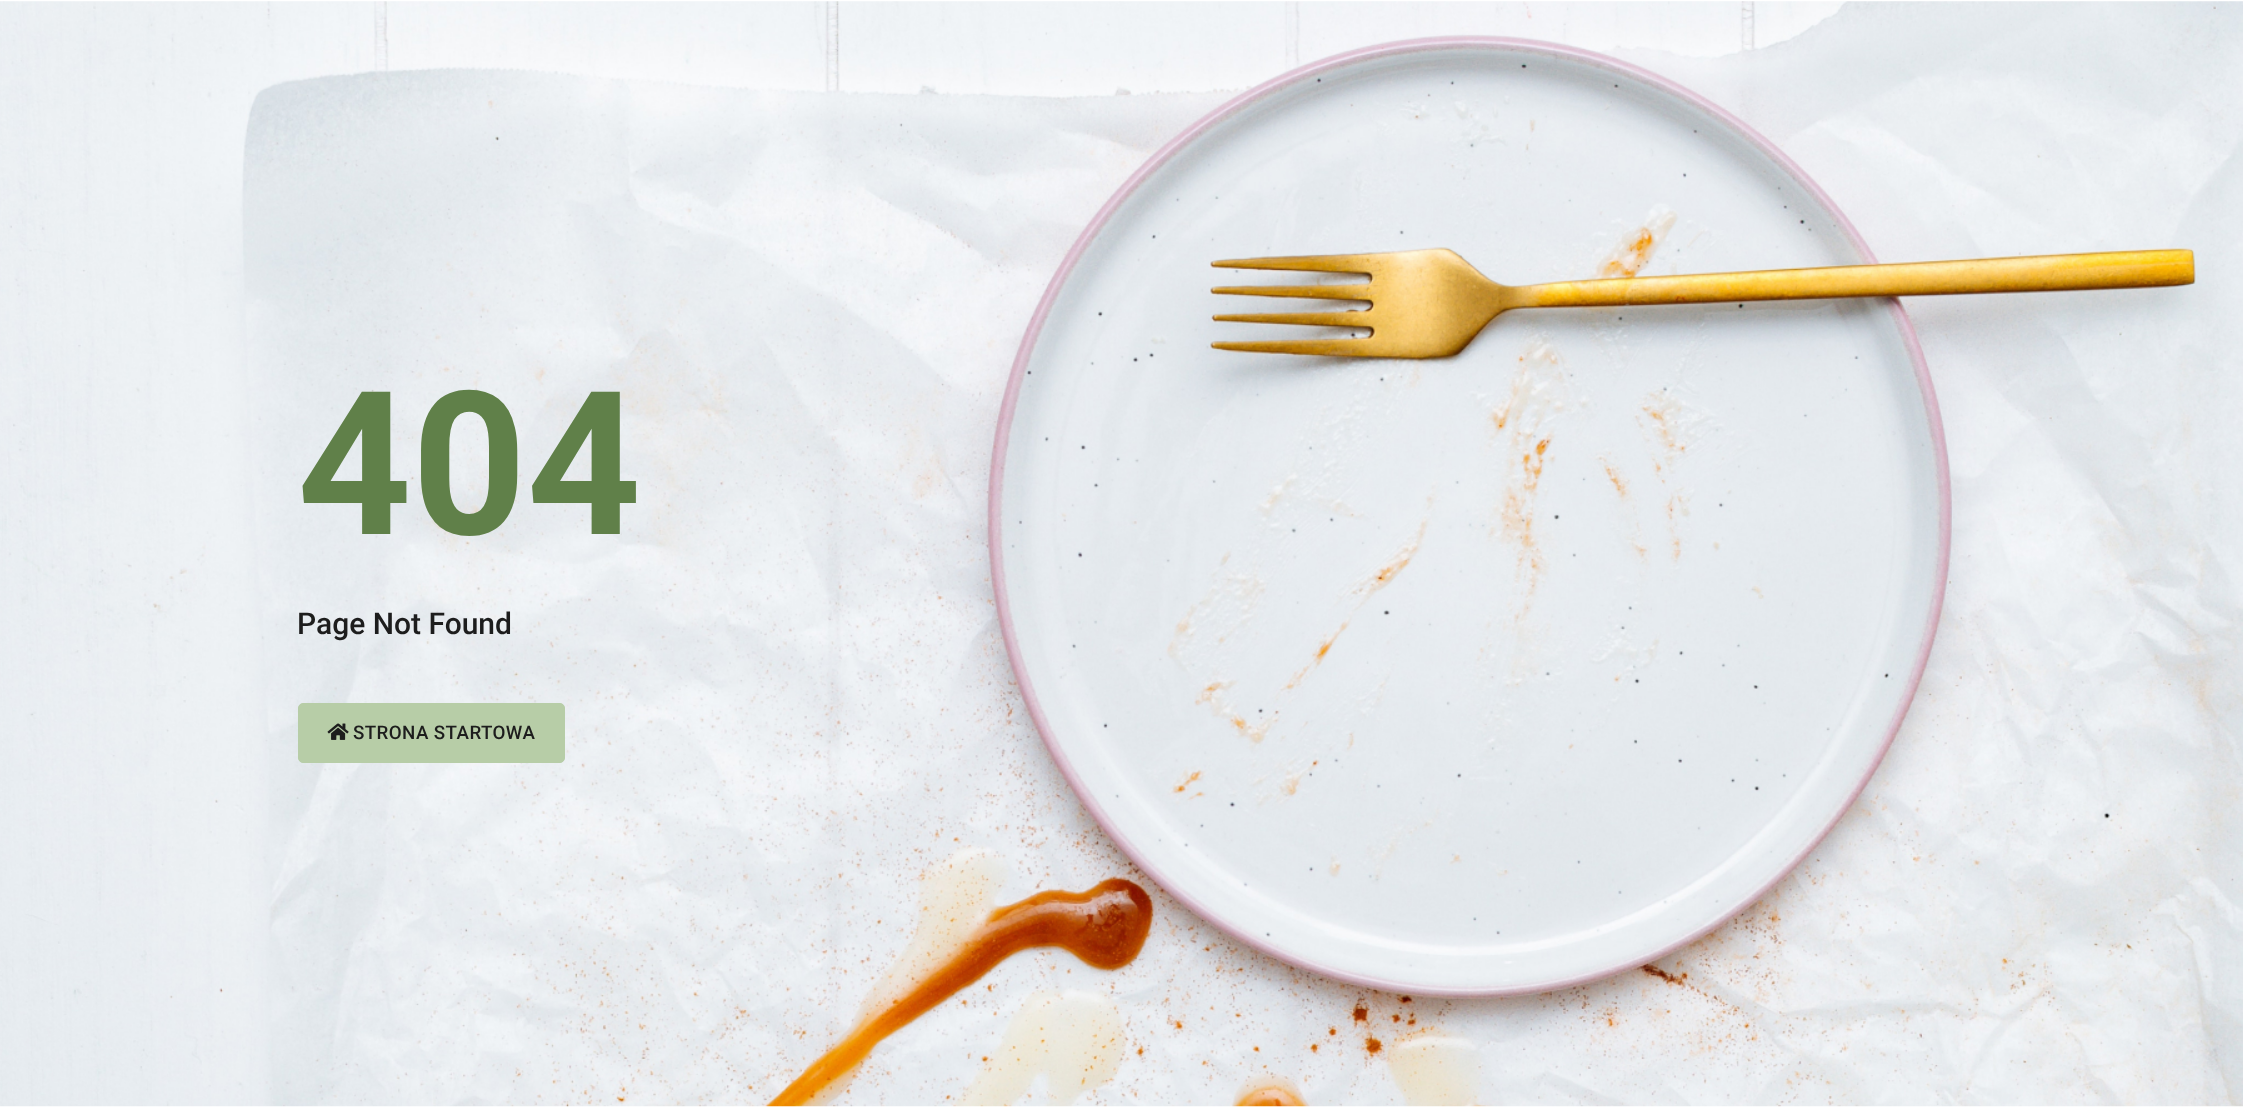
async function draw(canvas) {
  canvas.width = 2243
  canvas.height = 1108
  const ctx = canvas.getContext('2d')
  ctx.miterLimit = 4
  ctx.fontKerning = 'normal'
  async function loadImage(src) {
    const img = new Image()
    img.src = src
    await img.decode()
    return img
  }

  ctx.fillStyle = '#fff'
  ctx.fillRect(0, 0, 2243, 1108)
  ctx.drawImage(await loadImage('image0.png'), 0, 1, 2243, 1106)
  ctx.font = 'bold 200px Roboto'
  ctx.fillStyle = '#608049'
  ctx.fillText('404', 297, 534)
  ctx.font = '500 30px Roboto'
  ctx.fillStyle = '#1d1d1d'
  ctx.fillText('Page Not Found', 297, 634)
  ctx.fillStyle = '#b7cda7'
  ctx.beginPath()
  ctx.roundRect(298.5, 703.5, 266, 59, 4.5)
  ctx.fill()
  ctx.strokeStyle = '#b7cda7'
  ctx.stroke()
  ctx.drawImage(await loadImage('image1.png'), 327, 723, 22, 17)
  ctx.letterSpacing = '0.4px'
  ctx.font = '500 18.75px Roboto'
  ctx.fillStyle = '#1d1d1d'
  ctx.fillText('STRONA STARTOWA', 353, 739)
}

draw(document.querySelector('canvas'))
